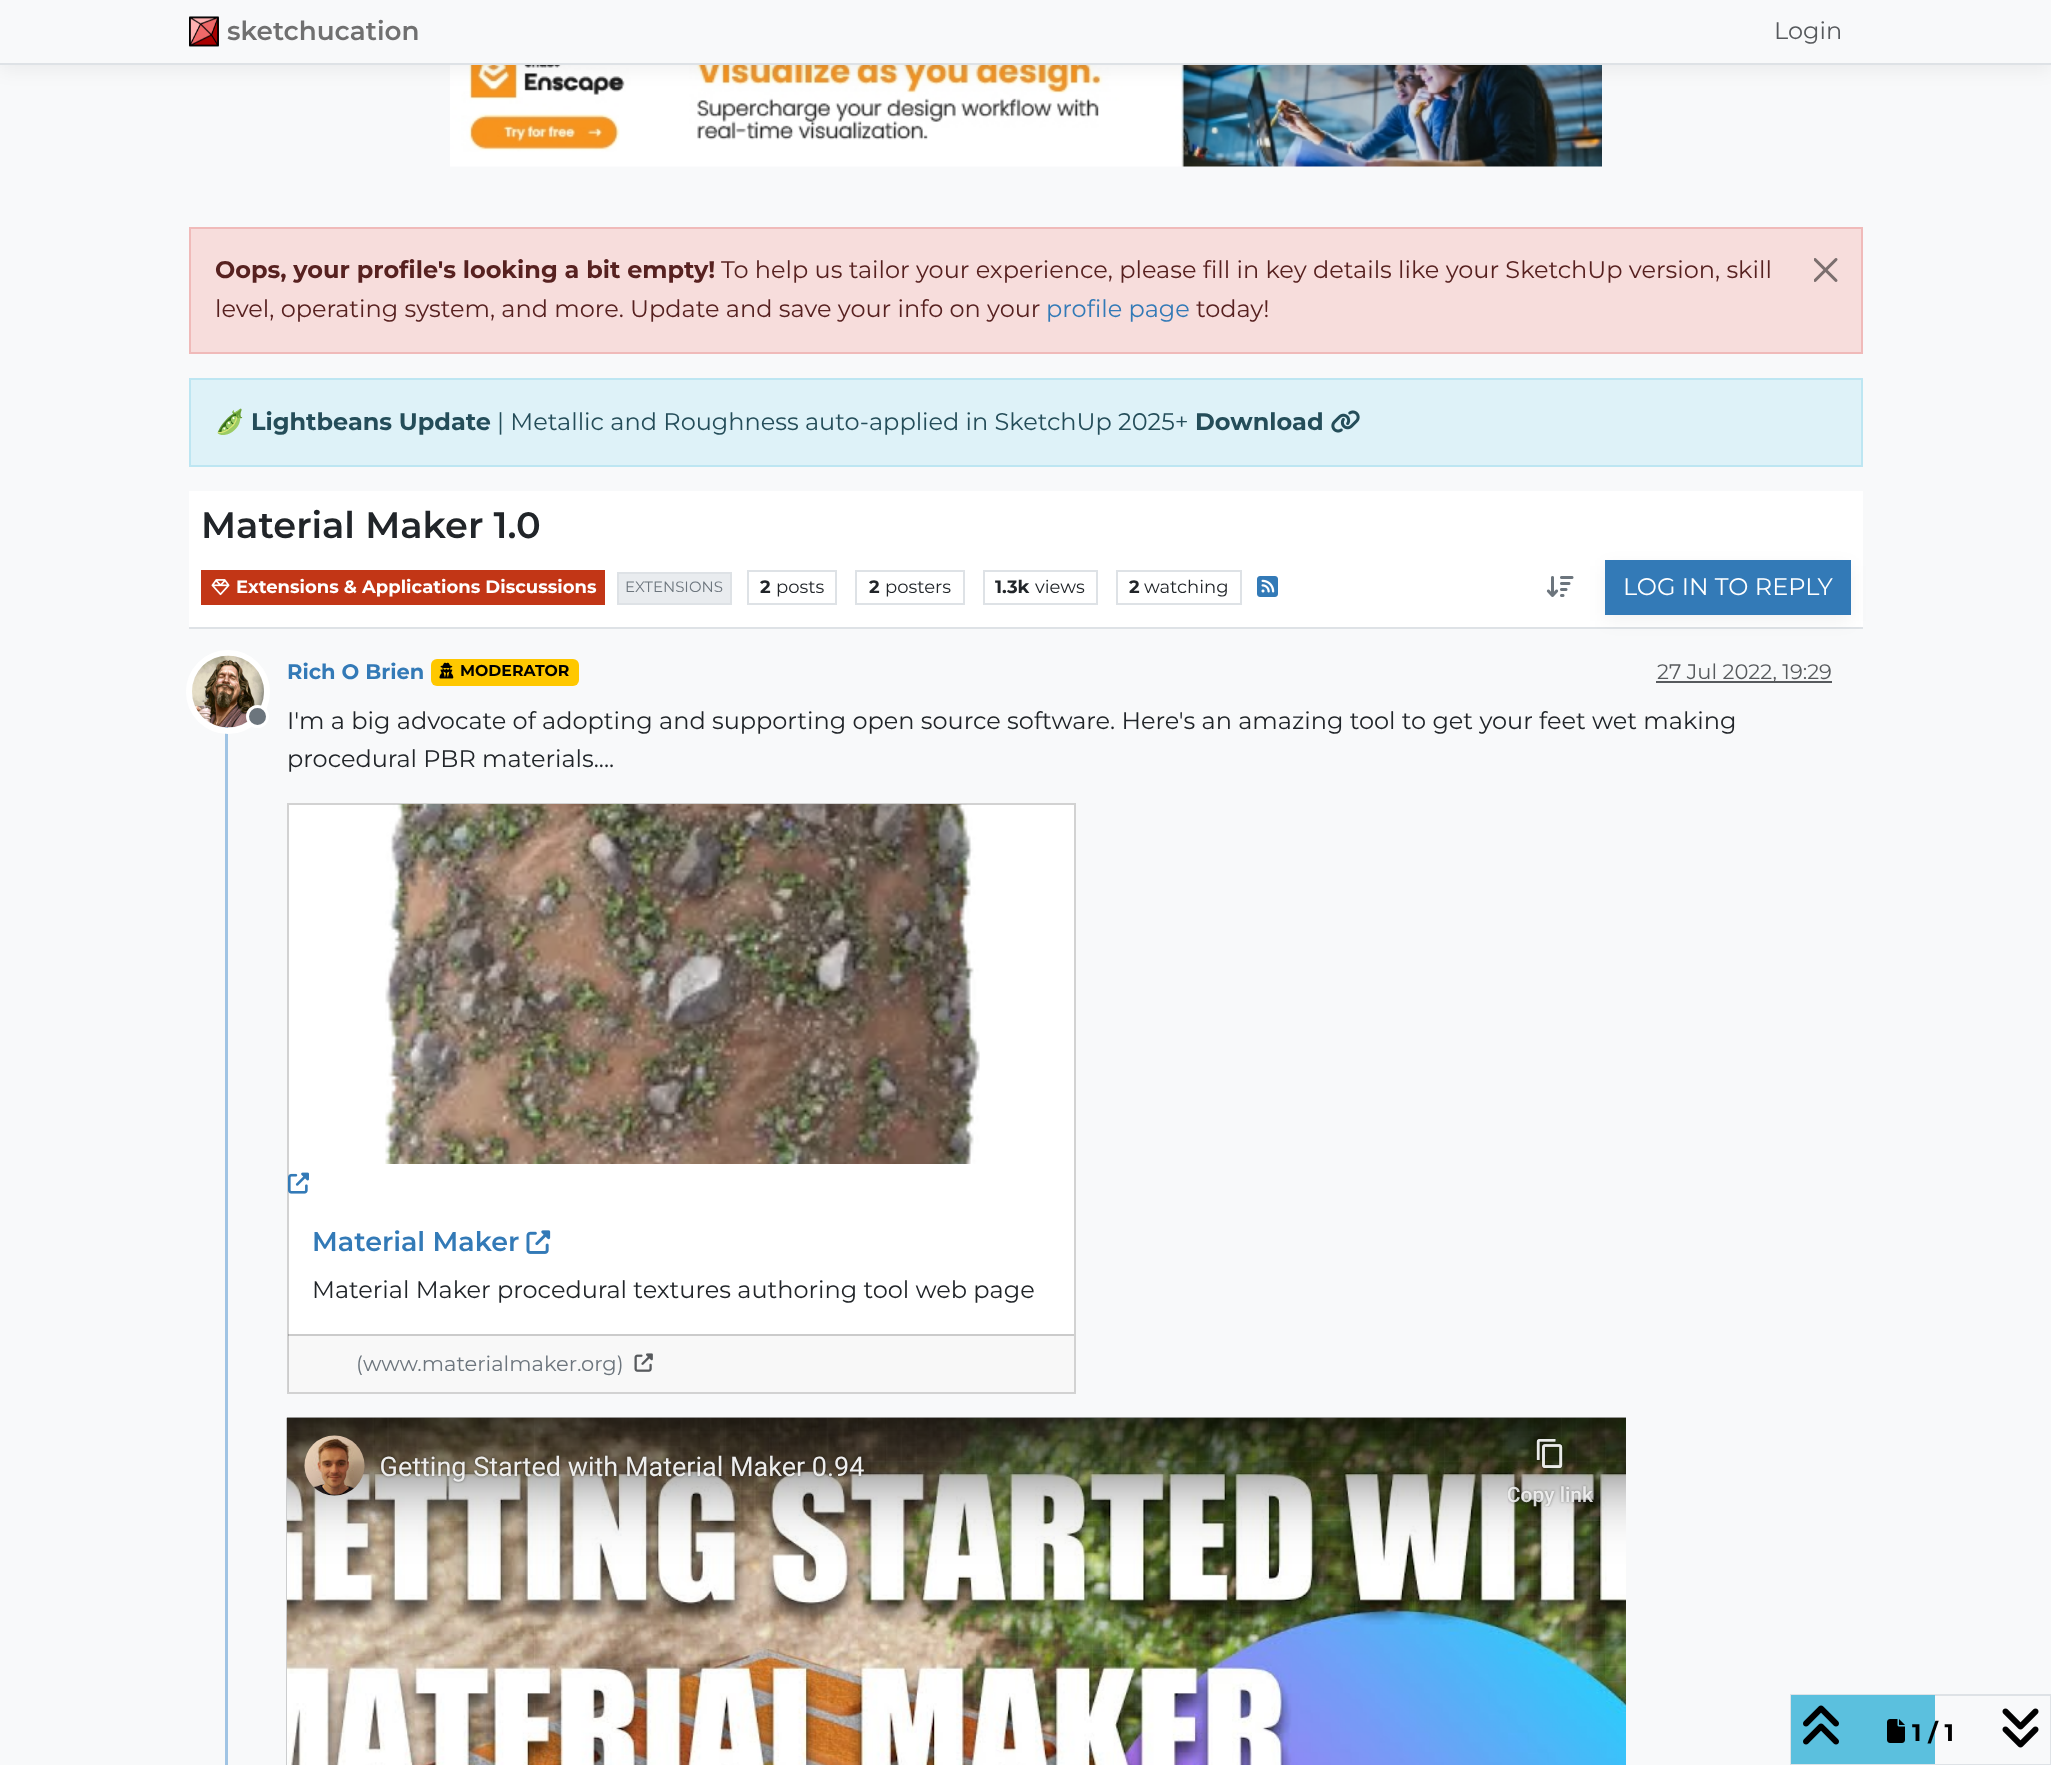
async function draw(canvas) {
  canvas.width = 2051
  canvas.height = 1765
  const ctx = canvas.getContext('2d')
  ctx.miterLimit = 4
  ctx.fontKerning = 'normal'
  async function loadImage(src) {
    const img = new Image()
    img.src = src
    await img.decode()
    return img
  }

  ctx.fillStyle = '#f8f9fa'
  ctx.fillRect(0, 0, 2051, 1765)
  ctx.drawImage(await loadImage('image1.png'), 450, 65, 1152, 102)
  ctx.fillStyle = '#0000000d'
  ctx.filter = 'blur(9px)'
  ctx.beginPath()
  ctx.rect(0, 6, 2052, 65)
  ctx.fill()
  ctx.filter = 'none'
  ctx.fillStyle = '#f8f9fa'
  ctx.fillRect(0, 0, 2051, 63)
  ctx.fillStyle = '#dee2e6'
  ctx.fillRect(0, 63, 2051, 2)
  ctx.drawImage(await loadImage('image0.png'), 189, 16, 30, 31)
  ctx.font = '100 26.25px "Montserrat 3"'
  ctx.fillStyle = '#707070'
  ctx.fillText('sketchucation', 227, 40)
  ctx.font = '100 24px "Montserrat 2"'
  ctx.fillStyle = '#575a5d'
  ctx.fillText('Login', 1774, 39)
  ctx.fillStyle = '#f7dddc'
  ctx.beginPath()
  ctx.rect(190, 228, 1672, 125)
  ctx.fill()
  ctx.strokeStyle = '#f0bab9'
  ctx.lineWidth = 2
  ctx.stroke()
  ctx.font = '100 24px Montserrat'
  ctx.fillStyle = '#572120'
  ctx.fillText('Oops, your profile\'s looking a bit empty!', 215, 278)
  ctx.font = '100 24px "Montserrat 2"'
  ctx.fillText('To help us tailor your experience, please fill in key details like your SketchUp version, skill', 721, 278)
  ctx.drawImage(await loadImage('image2.png'), 1814, 258, 24, 24)
  ctx.fillText('level, operating system, and more. Update and save your info on your', 215, 317)
  ctx.fillStyle = '#337ab7'
  ctx.fillText('profile page', 1046, 317)
  ctx.fillStyle = '#572120'
  ctx.fillText('today!', 1196, 317)
  ctx.fillStyle = '#def2f8'
  ctx.beginPath()
  ctx.rect(190, 379, 1672, 87)
  ctx.fill()
  ctx.strokeStyle = '#bde6f2'
  ctx.stroke()
  ctx.font = 'bold 24px Noto Color Emoji'
  ctx.fillStyle = '#244d59'
  ctx.fillText('🫛', 215, 430)
  ctx.font = '100 24px Montserrat'
  ctx.fillText('Lightbeans Update', 251, 430)
  ctx.font = '100 24px "Montserrat 2"'
  ctx.fillText('| Metallic and Roughness auto-applied in SketchUp 2025+', 497, 430)
  ctx.font = '100 24px Montserrat'
  ctx.fillText('Download', 1195, 430)
  ctx.drawImage(await loadImage('image3.png'), 1331, 410, 29, 23)
  ctx.fillStyle = '#fff'
  ctx.fillRect(189, 491, 1674, 136)
  ctx.fillStyle = '#dee2e6'
  ctx.fillRect(189, 627, 1674, 2)
  ctx.font = '100 36.75px "Montserrat 3"'
  ctx.fillStyle = '#212529'
  ctx.fillText('Material Maker 1.0', 201, 538)
  ctx.fillStyle = '#c23616'
  ctx.fillRect(201, 570, 404, 35)
  ctx.drawImage(await loadImage('image4.png'), 211, 579, 19, 17)
  ctx.font = '100 18px Montserrat'
  ctx.fillStyle = '#fff'
  ctx.fillText('Extensions & Applications Discussions', 236, 593)
  ctx.fillStyle = '#e9ecef'
  ctx.beginPath()
  ctx.rect(618, 573, 113, 31)
  ctx.fill()
  ctx.strokeStyle = '#dee2e6'
  ctx.stroke()
  ctx.font = '100 15px "Montserrat 2"'
  ctx.fillStyle = '#6c757d'
  ctx.fillText('EXTENSIONS', 625, 592)
  ctx.strokeRect(748, 571, 88, 33)
  ctx.font = '100 18px Montserrat'
  ctx.fillStyle = '#212529'
  ctx.fillText('2', 760, 593)
  ctx.font = '100 18px "Montserrat 2"'
  ctx.fillText('posts', 776, 593)
  ctx.strokeRect(856, 571, 108, 33)
  ctx.font = '100 18px Montserrat'
  ctx.fillText('2', 869, 593)
  ctx.font = '100 18px "Montserrat 2"'
  ctx.fillText('posters', 885, 593)
  ctx.strokeRect(984, 571, 113, 33)
  ctx.font = '100 18px Montserrat'
  ctx.fillText('1.3k', 995, 593)
  ctx.font = '100 18px "Montserrat 2"'
  ctx.fillText('views', 1035, 593)
  ctx.strokeRect(1117, 571, 124, 33)
  ctx.font = '100 18px Montserrat'
  ctx.fillText('2', 1129, 593)
  ctx.font = '100 18px "Montserrat 2"'
  ctx.fillText('watching', 1144, 593)
  ctx.drawImage(await loadImage('image5.png'), 1257, 576, 21, 21)
  ctx.drawImage(await loadImage('image6.png'), 1546, 576, 28, 21)
  ctx.fillStyle = '#0000000d'
  ctx.filter = 'blur(9px)'
  ctx.beginPath()
  ctx.rect(1605, 566, 246, 55)
  ctx.fill()
  ctx.filter = 'none'
  ctx.fillStyle = '#337ab7'
  ctx.fillRect(1605, 560, 246, 55)
  ctx.font = '100 24px "Montserrat 2"'
  ctx.fillStyle = '#fff'
  ctx.fillText('LOG IN TO REPLY', 1623, 595)
  ctx.fillStyle = '#a0c4e4'
  ctx.fillRect(225, 727, 3, 1038)
  ctx.beginPath()
  ctx.arc(228, 692, 39, 0, 2 * Math.PI)
  ctx.strokeStyle = '#fff'
  ctx.lineWidth = 6
  ctx.stroke()
  ctx.drawImage(await loadImage('image7.png'), 192, 655, 72, 73)
  ctx.fillStyle = '#6c757d'
  ctx.beginPath()
  ctx.arc(257.5, 716.5, 10, 0, 2 * Math.PI)
  ctx.fill()
  ctx.lineWidth = 3
  ctx.stroke()
  ctx.font = '100 21px Montserrat'
  ctx.fillStyle = '#337ab7'
  ctx.fillText('Rich O Brien', 287, 679)
  ctx.fillStyle = '#ffc800'
  ctx.beginPath()
  ctx.roundRect(431, 659, 148, 27, 6)
  ctx.fill()
  ctx.drawImage(await loadImage('image8.png'), 439, 662, 15, 17)
  ctx.font = '100 15.75px Montserrat'
  ctx.fillStyle = '#000'
  ctx.fillText('MODERATOR', 460, 676)
  ctx.fillStyle = '#575a5d'
  ctx.fillRect(1656, 681, 176, 2)
  ctx.font = '100 21px "Montserrat 2"'
  ctx.fillText('27 Jul 2022, 19:29', 1657, 679)
  ctx.font = '100 24px "Montserrat 2"'
  ctx.fillStyle = '#212529'
  ctx.fillText('I\'m a big advocate of adopting and supporting open source software. Here\'s an amazing tool to get your feet wet making', 287, 729)
  ctx.fillText('procedural PBR materials....', 287, 767)
  ctx.fillStyle = '#fff'
  ctx.beginPath()
  ctx.rect(288, 804, 787, 589)
  ctx.fill()
  ctx.strokeStyle = '#d2d2d2'
  ctx.lineWidth = 2
  ctx.stroke()
  ctx.drawImage(await loadImage('image9.png'), 385, 804, 595, 360)
  ctx.drawImage(await loadImage('image10.png'), 288, 1172, 21, 22)
  ctx.font = '100 27px "Montserrat 3"'
  ctx.fillStyle = '#337ab7'
  ctx.fillText('Material Maker', 312, 1251)
  ctx.drawImage(await loadImage('image11.png'), 526, 1230, 25, 24)
  ctx.font = '100 24px "Montserrat 2"'
  ctx.fillStyle = '#212529'
  ctx.fillText('Material Maker procedural textures authoring tool web page', 312, 1298)
  ctx.fillStyle = '#21252908'
  ctx.fillRect(288, 1334, 786, 58)
  ctx.fillStyle = '#0000002e'
  ctx.fillRect(288, 1334, 786, 2)
  ctx.font = '100 21px "Montserrat 2"'
  ctx.fillStyle = '#6c757d'
  ctx.fillText('(www.materialmaker.org)', 356, 1371)
  ctx.drawImage(await loadImage('image12.png'), 634, 1353, 19, 19)
  ctx.drawImage(await loadImage('image13.png'), 286, 1417, 1340, 348)
  ctx.strokeStyle = '#dee2e6'
  ctx.strokeRect(1791, 1695, 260, 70)
  ctx.fillStyle = '#5bc0de'
  ctx.fillRect(1791, 1695, 144, 69)
  ctx.drawImage(await loadImage('image14.png'), 1803, 1705, 36, 40)
  ctx.drawImage(await loadImage('image15.png'), 1887, 1719, 18, 24)
  ctx.font = '100 24px Montserrat'
  ctx.fillStyle = '#000'
  ctx.fillText('1 / 1', 1912, 1741)
  ctx.drawImage(await loadImage('image16.png'), 2002, 1708, 37, 40)
}

draw(document.querySelector('canvas'))
